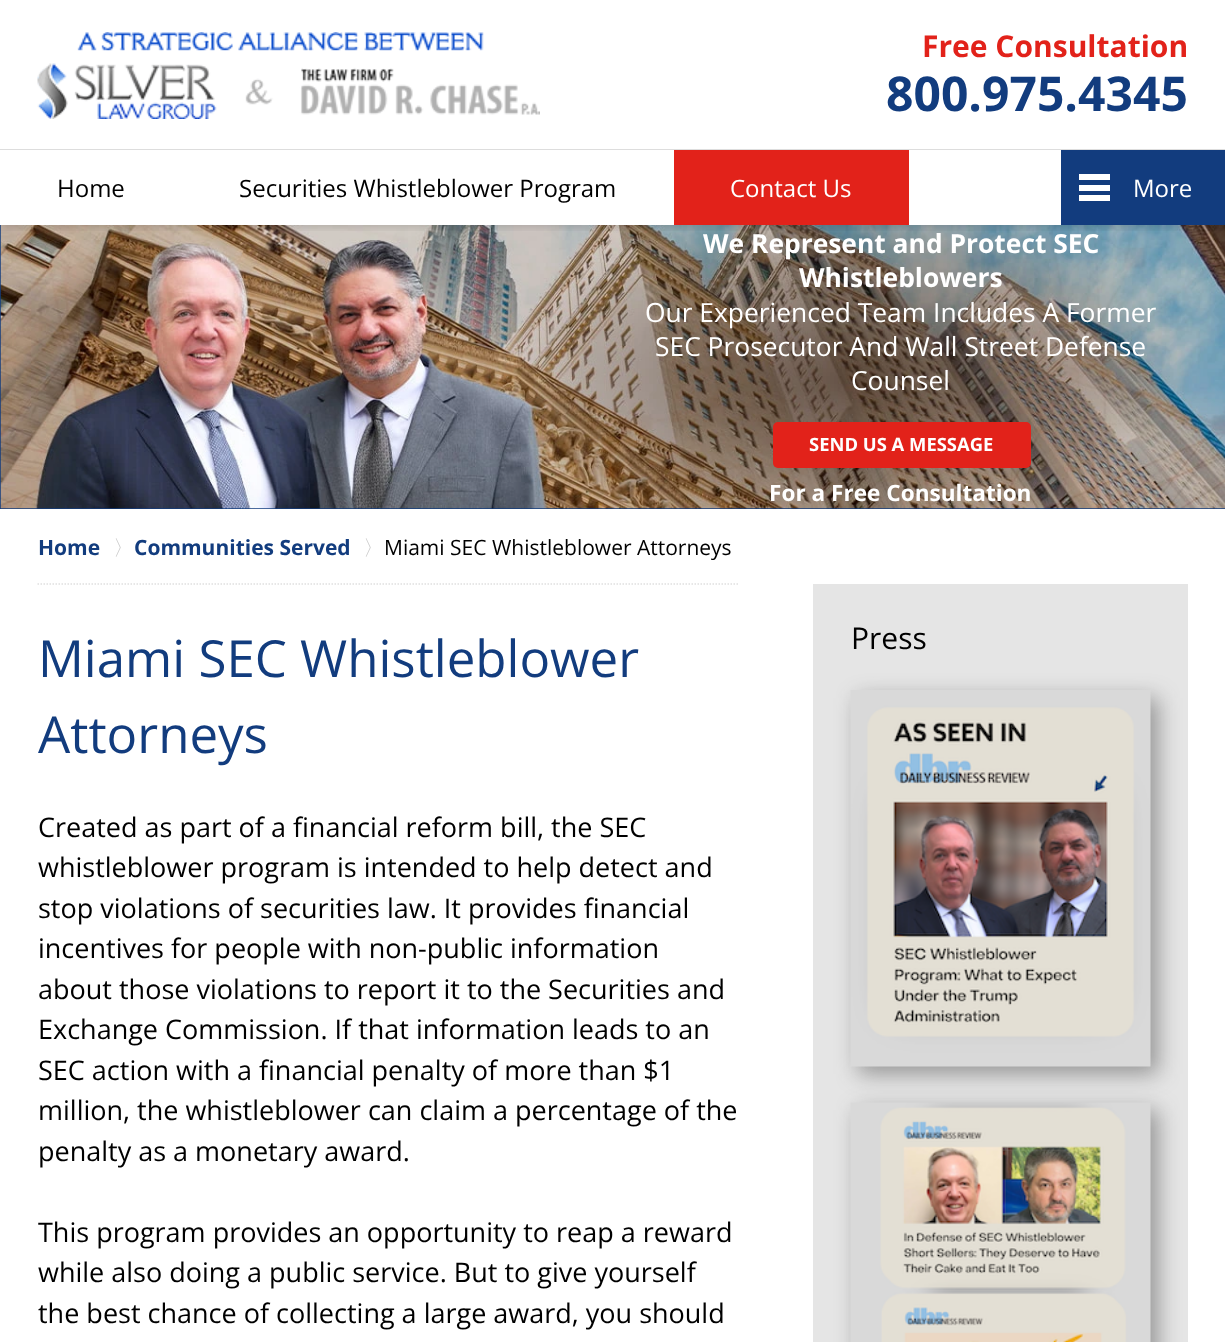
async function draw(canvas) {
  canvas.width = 1225
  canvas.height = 1342
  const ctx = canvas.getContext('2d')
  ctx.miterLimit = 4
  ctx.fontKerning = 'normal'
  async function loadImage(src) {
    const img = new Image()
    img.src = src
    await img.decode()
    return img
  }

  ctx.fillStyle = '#fff'
  ctx.fillRect(0, 0, 1225, 1342)
  ctx.fillStyle = '#123c7e'
  ctx.fillRect(0, 225, 1225, 284)
  ctx.drawImage(await loadImage('image1.png'), 0, 225, 1225, 284)
  ctx.save()
  ctx.beginPath()
  ctx.rect(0, 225, 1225, 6)
  ctx.clip()
  ctx.fillStyle = '#00000026'
  ctx.filter = 'blur(4px)'
  ctx.beginPath()
  ctx.rect(0, 2, 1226, 225)
  ctx.fill()
  ctx.filter = 'none'
  ctx.restore()
  ctx.drawImage(await loadImage('image0.png'), 37, 32, 503, 87)
  ctx.font = 'bold 30px Open Sans'
  ctx.fillStyle = '#e2221a'
  ctx.fillText('Free Consultation', 922, 57)
  ctx.font = 'bold 48px Open Sans'
  ctx.fillStyle = '#123c7e'
  ctx.fillText('800.975.4345', 886, 111)
  ctx.fillStyle = '#ddd'
  ctx.beginPath()
  ctx.moveTo(0, 149)
  ctx.lineTo(0, 150)
  ctx.lineTo(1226, 150)
  ctx.lineTo(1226, 224)
  ctx.lineTo(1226, 149)
  ctx.closePath()
  ctx.fill()
  ctx.font = '24px Open Sans'
  ctx.fillStyle = '#000'
  ctx.fillText('Home', 57, 197)
  ctx.fillText('Securities Whistleblower Program', 239, 197)
  ctx.fillStyle = '#e2221a'
  ctx.fillRect(674, 150, 235, 75)
  ctx.fillStyle = '#fff'
  ctx.fillText('Contact Us', 730, 197)
  ctx.fillStyle = '#123c7e'
  ctx.fillRect(1061, 150, 164, 75)
  ctx.fillStyle = '#fff'
  ctx.fillRect(1079, 195, 31, 6)
  ctx.fillRect(1079, 185, 31, 6)
  ctx.fillRect(1079, 174, 31, 6)
  ctx.fillText('More', 1133, 197)
  ctx.font = 'bold 26.4px Open Sans'
  ctx.fillText('We Represent and Protect SEC', 703, 253)
  ctx.fillText('Whistleblowers', 799, 287)
  ctx.font = '26.4px Open Sans'
  ctx.fillText('Our Experienced Team Includes A Former', 645, 322)
  ctx.fillText('SEC Prosecutor And Wall Street Defense', 655, 356)
  ctx.fillText('Counsel', 851, 390)
  ctx.fillStyle = '#e2221a'
  ctx.beginPath()
  ctx.roundRect(773, 422, 258, 46, 5)
  ctx.fill()
  ctx.font = 'bold 18.4px Open Sans'
  ctx.fillStyle = '#fff'
  ctx.fillText('SEND US A MESSAGE', 809, 451)
  ctx.font = 'bold 22.6px Open Sans'
  ctx.fillText('For a Free Consultation', 769, 501)
  ctx.beginPath()
  ctx.moveTo(37.5, 584)
  ctx.lineTo(738, 584)
  ctx.strokeStyle = '#e0e0e0'
  ctx.lineWidth = 1.5
  ctx.setLineDash([1.5, 1.5])
  ctx.stroke()
  ctx.font = 'bold 21px Open Sans'
  ctx.fillStyle = '#123c7e'
  ctx.fillText('Home', 38, 555)
  ctx.font = '500 21px WenQuanYi Zen Hei'
  ctx.fillStyle = '#ccc'
  ctx.fillText('〉', 113, 555)
  ctx.font = 'bold 21px Open Sans'
  ctx.fillStyle = '#123c7e'
  ctx.fillText('Communities Served', 134, 555)
  ctx.font = '500 21px WenQuanYi Zen Hei'
  ctx.fillStyle = '#ccc'
  ctx.fillText('〉', 363, 555)
  ctx.font = '21px Open Sans'
  ctx.fillStyle = '#000'
  ctx.fillText('Miami SEC Whistleblower Attorneys', 384, 555)
  ctx.font = '51px Open Sans'
  ctx.fillStyle = '#123c7e'
  ctx.fillText('Miami SEC Whistleblower', 38, 677)
  ctx.fillText('Attorneys', 38, 753)
  ctx.font = '27px Open Sans'
  ctx.fillStyle = '#000'
  ctx.fillText('Created as part of a financial reform bill, the SEC', 38, 837)
  ctx.fillText('whistleblower program is intended to help detect and', 38, 877)
  ctx.fillText('stop violations of securities law. It provides financial', 38, 918)
  ctx.fillText('incentives for people with non-public information', 38, 958)
  ctx.fillText('about those violations to report it to the Securities and', 38, 999)
  ctx.fillText('Exchange Commission. If that information leads to an', 38, 1039)
  ctx.fillText('SEC action with a financial penalty of more than $1', 38, 1080)
  ctx.fillText('million, the whistleblower can claim a percentage of the', 38, 1120)
  ctx.fillText('penalty as a monetary award.', 38, 1161)
  ctx.fillText('This program provides an opportunity to reap a reward', 38, 1242)
  ctx.fillText('while also doing a public service. But to give yourself', 38, 1282)
  ctx.fillText('the best chance of collecting a large award, you should', 38, 1323)
  ctx.fillStyle = '#e5e5e5'
  ctx.fillRect(813, 584, 375, 758)
  ctx.font = '30px Open Sans'
  ctx.fillStyle = '#000'
  ctx.fillText('Press', 851, 649)
  ctx.fillStyle = '#33333373'
  ctx.filter = 'blur(11px)'
  ctx.beginPath()
  ctx.rect(858, 698, 300, 376)
  ctx.fill()
  ctx.filter = 'none'
  ctx.drawImage(await loadImage('image2.png'), 850, 690, 301, 377)
  ctx.filter = 'blur(11px)'
  ctx.beginPath()
  ctx.rect(858, 1110, 300, 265)
  ctx.fill()
  ctx.filter = 'none'
  ctx.drawImage(await loadImage('image3.png'), 850, 1102, 301, 240)
}

draw(document.querySelector('canvas'))
